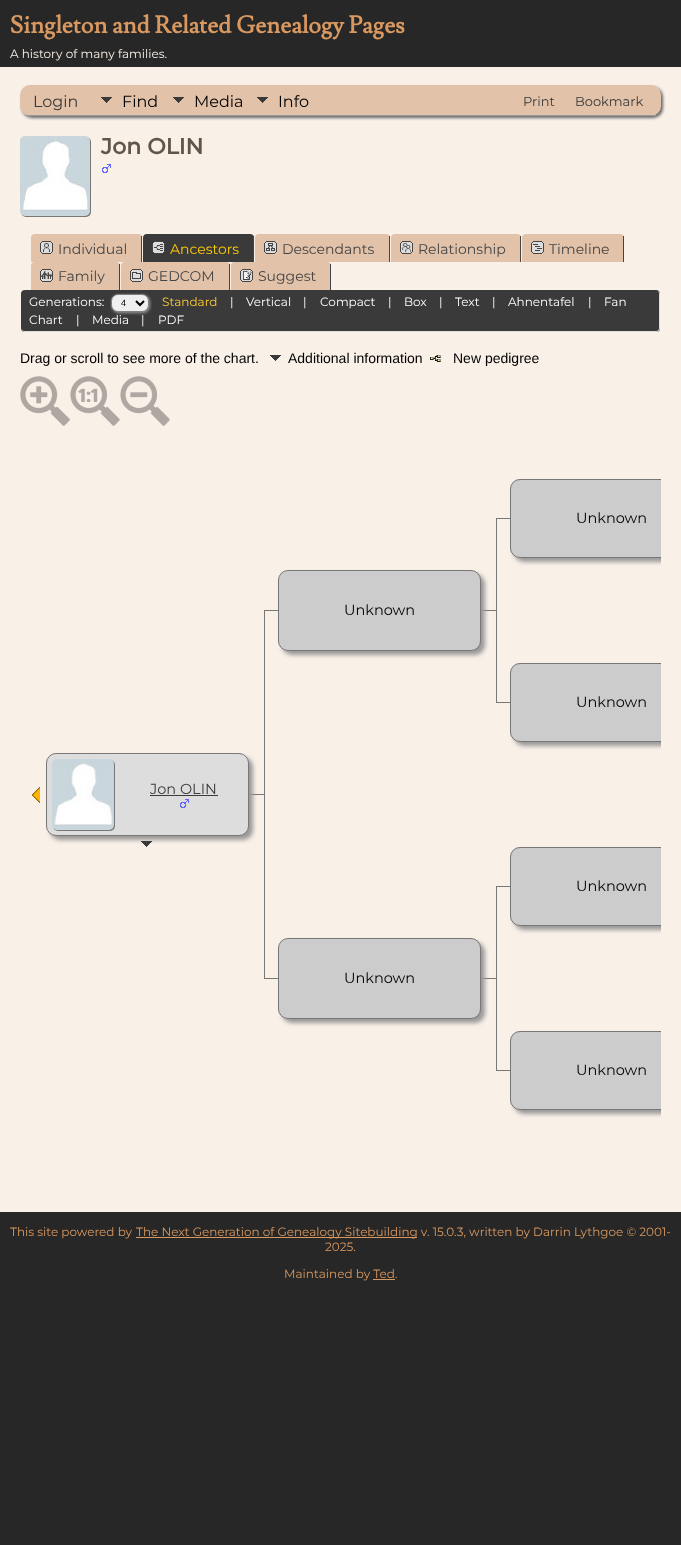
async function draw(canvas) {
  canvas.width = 681
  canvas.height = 1545
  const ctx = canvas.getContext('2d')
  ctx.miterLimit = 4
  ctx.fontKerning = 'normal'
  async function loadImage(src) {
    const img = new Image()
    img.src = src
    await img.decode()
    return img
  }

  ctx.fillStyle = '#272727'
  ctx.fillRect(0, 0, 681, 1545)
  ctx.font = 'bold 24px Lusitana'
  ctx.fillStyle = '#d99860'
  ctx.fillText('Singleton and Related Genealogy Pages', 10, 33)
  ctx.font = '100 12px Montserrat'
  ctx.fillStyle = '#f9f0e8'
  ctx.fillText('A history of many families.', 10, 58)
  ctx.fillRect(0, 67, 681, 1145)
  ctx.fillStyle = '#666'
  ctx.filter = 'blur(1.5px)'
  ctx.beginPath()
  ctx.roundRect(22, 87, 641, 31, 10)
  ctx.fill()
  ctx.filter = 'none'
  ctx.fillStyle = '#e2c2a9'
  ctx.beginPath()
  ctx.roundRect(20, 85, 641, 31, 10)
  ctx.fill()
  ctx.fillStyle = '#999'
  ctx.fillRect(25, 115, 631, 1)
  ctx.font = '100 16px Montserrat'
  ctx.fillStyle = '#3a3a3a'
  ctx.fillText('Login', 33, 107)
  ctx.drawImage(await loadImage('image0.png'), 101, 97, 11, 6)
  ctx.fillStyle = '#000'
  ctx.fillText('Find', 122, 107)
  ctx.drawImage(await loadImage('image0.png'), 173, 97, 11, 6)
  ctx.fillText('Media', 194, 107)
  ctx.drawImage(await loadImage('image0.png'), 257, 97, 11, 6)
  ctx.fillText('Info', 278, 107)
  ctx.font = '100 13px Montserrat'
  ctx.fillStyle = '#3a3a3a'
  ctx.fillText('Print', 523, 106)
  ctx.fillText('Bookmark', 575, 106)
  ctx.fillStyle = '#777'
  ctx.filter = 'blur(0.5px)'
  ctx.beginPath()
  ctx.roundRect(21, 137, 70, 80, 5)
  ctx.fill()
  ctx.filter = 'none'
  ctx.drawImage(await loadImage('image1.png'), 20, 136, 70, 80)
  ctx.font = 'bold 22px Montserrat'
  ctx.fillStyle = '#5f5649'
  ctx.fillText('Jon OLIN', 101, 154)
  ctx.drawImage(await loadImage('image2.png'), 102, 164, 9, 9)
  ctx.fillStyle = '#e2c2a9'
  ctx.beginPath()
  ctx.roundRect(31, 234, 111, 28, [4, 4, 0, 0])
  ctx.fill()
  ctx.fillStyle = '#444'
  ctx.fillRect(141, 236, 1, 26)
  ctx.drawImage(await loadImage('image3.png'), 40, 241, 13, 13)
  ctx.font = '100 14px Montserrat'
  ctx.fillText('Individual', 58, 254)
  ctx.fillStyle = '#3a3a3a'
  ctx.beginPath()
  ctx.roundRect(143, 234, 111, 28, [4, 4, 0, 0])
  ctx.fill()
  ctx.fillStyle = '#444'
  ctx.fillRect(253, 236, 1, 26)
  ctx.drawImage(await loadImage('image4.png'), 152, 241, 13, 13)
  ctx.fillStyle = '#fc0'
  ctx.fillText('Ancestors', 170, 254)
  ctx.fillStyle = '#e2c2a9'
  ctx.beginPath()
  ctx.roundRect(255, 234, 135, 28, [4, 4, 0, 0])
  ctx.fill()
  ctx.fillStyle = '#444'
  ctx.fillRect(389, 236, 1, 26)
  ctx.drawImage(await loadImage('image5.png'), 264, 241, 13, 13)
  ctx.fillText('Descendants', 282, 254)
  ctx.fillStyle = '#e2c2a9'
  ctx.beginPath()
  ctx.roundRect(391, 234, 130, 28, [4, 4, 0, 0])
  ctx.fill()
  ctx.fillStyle = '#444'
  ctx.fillRect(520, 236, 1, 26)
  ctx.drawImage(await loadImage('image6.png'), 400, 241, 13, 13)
  ctx.fillText('Relationship', 418, 254)
  ctx.fillStyle = '#e2c2a9'
  ctx.beginPath()
  ctx.roundRect(522, 234, 102, 28, [4, 4, 0, 0])
  ctx.fill()
  ctx.fillStyle = '#444'
  ctx.fillRect(623, 236, 1, 26)
  ctx.drawImage(await loadImage('image7.png'), 531, 241, 13, 13)
  ctx.fillText('Timeline', 549, 254)
  ctx.fillStyle = '#e2c2a9'
  ctx.beginPath()
  ctx.roundRect(31, 262, 89, 28, [4, 4, 0, 0])
  ctx.fill()
  ctx.fillStyle = '#444'
  ctx.fillRect(119, 264, 1, 26)
  ctx.drawImage(await loadImage('image8.png'), 40, 269, 13, 13)
  ctx.fillText('Family', 58, 281)
  ctx.fillStyle = '#e2c2a9'
  ctx.beginPath()
  ctx.roundRect(121, 262, 109, 28, [4, 4, 0, 0])
  ctx.fill()
  ctx.fillStyle = '#444'
  ctx.fillRect(229, 264, 1, 26)
  ctx.drawImage(await loadImage('image9.png'), 130, 269, 13, 13)
  ctx.fillText('GEDCOM', 148, 281)
  ctx.fillStyle = '#e2c2a9'
  ctx.beginPath()
  ctx.roundRect(231, 262, 100, 28, [4, 4, 0, 0])
  ctx.fill()
  ctx.fillStyle = '#444'
  ctx.fillRect(330, 264, 1, 26)
  ctx.drawImage(await loadImage('image10.png'), 240, 269, 13, 13)
  ctx.fillText('Suggest', 258, 281)
  ctx.fillStyle = '#3a3a3a'
  ctx.beginPath()
  ctx.roundRect(21, 290, 639, 42, 4)
  ctx.fill()
  ctx.fillStyle = '#ddd'
  ctx.beginPath()
  ctx.moveTo(25, 290)
  ctx.lineTo(656, 290)
  ctx.bezierCurveTo(658, 290, 660, 292, 660, 294)
  ctx.lineTo(660, 328)
  ctx.bezierCurveTo(660, 330, 658, 332, 656, 332)
  ctx.lineTo(25, 332)
  ctx.bezierCurveTo(23, 332, 21, 330, 21, 328)
  ctx.lineTo(21, 294)
  ctx.bezierCurveTo(21, 292, 23, 290, 25, 290)
  ctx.closePath()
  ctx.moveTo(25, 290)
  ctx.lineTo(656, 290)
  ctx.bezierCurveTo(658, 290, 659, 292, 659, 294)
  ctx.lineTo(659, 328)
  ctx.bezierCurveTo(659, 330, 658, 331, 656, 331)
  ctx.lineTo(25, 331)
  ctx.bezierCurveTo(23, 331, 21, 330, 21, 328)
  ctx.lineTo(21, 294)
  ctx.bezierCurveTo(21, 292, 23, 290, 25, 290)
  ctx.closePath()
  ctx.fill('evenodd')
  ctx.font = '100 12px Montserrat'
  ctx.fillStyle = '#fff'
  ctx.fillText('Generations:', 29, 306)
  ctx.fillStyle = '#999'
  ctx.filter = 'blur(1.5px)'
  ctx.beginPath()
  ctx.roundRect(112, 295, 38, 18, 7)
  ctx.fill()
  ctx.filter = 'none'
  ctx.fillStyle = '#efefef'
  ctx.beginPath()
  ctx.roundRect(111.5, 294.5, 37, 17, 6.5)
  ctx.fill()
  ctx.strokeStyle = '#808080'
  ctx.stroke()
  ctx.beginPath()
  ctx.moveTo(136, 301)
  ctx.lineTo(140, 305)
  ctx.lineTo(144, 301)
  ctx.strokeStyle = '#000'
  ctx.lineWidth = 2
  ctx.stroke()
  ctx.font = '9px Liberation Sans'
  ctx.fillStyle = '#000'
  ctx.fillText('4', 121, 306)
  ctx.font = '100 12px Montserrat'
  ctx.fillStyle = '#fc3'
  ctx.fillText('Standard', 162, 306)
  ctx.fillStyle = '#fff'
  ctx.fillText('|', 230, 306)
  ctx.fillText('Vertical', 246, 306)
  ctx.fillText('|', 303, 306)
  ctx.fillText('Compact', 320, 306)
  ctx.fillText('|', 388, 306)
  ctx.fillText('Box', 404, 306)
  ctx.fillText('|', 439, 306)
  ctx.fillText('Text', 455, 306)
  ctx.fillText('|', 492, 306)
  ctx.fillText('Ahnentafel', 508, 306)
  ctx.fillText('|', 588, 306)
  ctx.fillText('Fan', 604, 306)
  ctx.fillText('Chart', 29, 324)
  ctx.fillText('|', 76, 324)
  ctx.fillText('Media', 92, 324)
  ctx.fillText('|', 141, 324)
  ctx.fillText('PDF', 158, 324)
  ctx.font = '14px Liberation Sans'
  ctx.fillStyle = '#000'
  ctx.fillText('Drag or scroll to see more of the chart.', 20, 363)
  ctx.drawImage(await loadImage('image11.png'), 270, 355, 11, 6)
  ctx.fillText('Additional information', 288, 363)
  ctx.drawImage(await loadImage('image12.png'), 430, 355, 11, 7)
  ctx.fillText('New pedigree', 453, 363)
  ctx.drawImage(await loadImage('image13.png'), 20, 376, 50, 50)
  ctx.drawImage(await loadImage('image14.png'), 70, 376, 50, 50)
  ctx.drawImage(await loadImage('image15.png'), 120, 376, 50, 50)
  ctx.fillStyle = '#777'
  ctx.fillRect(496, 518, 17, 1)
  ctx.save()
  ctx.beginPath()
  ctx.rect(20, 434, 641, 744)
  ctx.clip()
  ctx.fillStyle = '#999'
  ctx.filter = 'blur(2px)'
  ctx.beginPath()
  ctx.roundRect(514, 483, 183, 79, 10)
  ctx.fill()
  ctx.filter = 'none'
  ctx.restore()
  ctx.fillStyle = '#ccc'
  ctx.beginPath()
  ctx.roundRect(510, 479, 151, 79, [10, 0, 0, 10])
  ctx.fill()
  ctx.save()
  ctx.beginPath()
  ctx.rect(20, 434, 641, 744)
  ctx.clip()
  ctx.beginPath()
  ctx.roundRect(510.5, 479.5, 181, 78, 9.5)
  ctx.strokeStyle = '#777'
  ctx.lineWidth = 1
  ctx.stroke()
  ctx.restore()
  ctx.font = '100 14.5px Montserrat'
  ctx.fillStyle = '#000'
  ctx.fillText('Unknown', 576, 523)
  ctx.fillStyle = '#777'
  ctx.fillRect(264, 610, 17, 1)
  ctx.fillRect(480, 610, 16, 1)
  ctx.fillStyle = '#999'
  ctx.filter = 'blur(2px)'
  ctx.beginPath()
  ctx.roundRect(282, 574, 203, 81, 10)
  ctx.fill()
  ctx.filter = 'none'
  ctx.fillStyle = '#ccc'
  ctx.beginPath()
  ctx.roundRect(278.5, 570.5, 202, 80, 9.5)
  ctx.fill()
  ctx.strokeStyle = '#777'
  ctx.lineWidth = 1
  ctx.stroke()
  ctx.fillStyle = '#000'
  ctx.fillText('Unknown', 344, 615)
  ctx.fillStyle = '#777'
  ctx.fillRect(496, 518, 1, 93)
  ctx.fillRect(264, 610, 1, 185)
  ctx.fillRect(496, 702, 17, 1)
  ctx.fillRect(496, 611, 1, 92)
  ctx.save()
  ctx.beginPath()
  ctx.rect(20, 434, 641, 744)
  ctx.clip()
  ctx.fillStyle = '#999'
  ctx.filter = 'blur(2px)'
  ctx.beginPath()
  ctx.roundRect(514, 667, 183, 79, 10)
  ctx.fill()
  ctx.filter = 'none'
  ctx.restore()
  ctx.fillStyle = '#ccc'
  ctx.beginPath()
  ctx.roundRect(510, 663, 151, 79, [10, 0, 0, 10])
  ctx.fill()
  ctx.save()
  ctx.beginPath()
  ctx.rect(20, 434, 641, 744)
  ctx.clip()
  ctx.beginPath()
  ctx.roundRect(510.5, 663.5, 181, 78, 9.5)
  ctx.stroke()
  ctx.restore()
  ctx.fillStyle = '#000'
  ctx.fillText('Unknown', 576, 707)
  ctx.drawImage(await loadImage('image16.png'), 32, 787, 8, 16)
  ctx.fillStyle = '#777'
  ctx.fillRect(248, 794, 16, 1)
  ctx.fillStyle = '#999'
  ctx.filter = 'blur(2px)'
  ctx.beginPath()
  ctx.roundRect(50, 757, 203, 83, 10)
  ctx.fill()
  ctx.filter = 'none'
  ctx.fillStyle = '#ddd'
  ctx.beginPath()
  ctx.roundRect(46.5, 753.5, 202, 82, 9.5)
  ctx.fill()
  ctx.stroke()
  ctx.fillStyle = '#777'
  ctx.filter = 'blur(0.5px)'
  ctx.beginPath()
  ctx.roundRect(53, 760, 62, 71, 5)
  ctx.fill()
  ctx.filter = 'none'
  ctx.drawImage(await loadImage('image17.png'), 52, 759, 62, 71)
  ctx.fillStyle = '#3a3a3a'
  ctx.fillText('Jon OLIN', 150, 794)
  ctx.fillRect(150, 795, 68, 1)
  ctx.drawImage(await loadImage('image18.png'), 180, 799, 9, 9)
  ctx.drawImage(await loadImage('image19.png'), 141, 841, 11, 6)
  ctx.fillStyle = '#777'
  ctx.fillRect(264, 978, 17, 1)
  ctx.fillRect(264, 795, 1, 184)
  ctx.fillRect(496, 886, 17, 1)
  ctx.save()
  ctx.beginPath()
  ctx.rect(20, 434, 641, 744)
  ctx.clip()
  ctx.fillStyle = '#999'
  ctx.filter = 'blur(2px)'
  ctx.beginPath()
  ctx.roundRect(514, 851, 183, 79, 10)
  ctx.fill()
  ctx.filter = 'none'
  ctx.restore()
  ctx.fillStyle = '#ccc'
  ctx.beginPath()
  ctx.roundRect(510, 847, 151, 79, [10, 0, 0, 10])
  ctx.fill()
  ctx.save()
  ctx.beginPath()
  ctx.rect(20, 434, 641, 744)
  ctx.clip()
  ctx.beginPath()
  ctx.roundRect(510.5, 847.5, 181, 78, 9.5)
  ctx.stroke()
  ctx.restore()
  ctx.fillStyle = '#000'
  ctx.fillText('Unknown', 576, 891)
  ctx.fillStyle = '#777'
  ctx.fillRect(480, 978, 16, 1)
  ctx.fillStyle = '#999'
  ctx.filter = 'blur(2px)'
  ctx.beginPath()
  ctx.roundRect(282, 942, 203, 81, 10)
  ctx.fill()
  ctx.filter = 'none'
  ctx.fillStyle = '#ccc'
  ctx.beginPath()
  ctx.roundRect(278.5, 938.5, 202, 80, 9.5)
  ctx.fill()
  ctx.stroke()
  ctx.fillStyle = '#000'
  ctx.fillText('Unknown', 344, 983)
  ctx.fillStyle = '#777'
  ctx.fillRect(496, 886, 1, 93)
  ctx.fillRect(496, 1070, 17, 1)
  ctx.fillRect(496, 979, 1, 92)
  ctx.save()
  ctx.beginPath()
  ctx.rect(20, 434, 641, 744)
  ctx.clip()
  ctx.fillStyle = '#999'
  ctx.filter = 'blur(2px)'
  ctx.beginPath()
  ctx.roundRect(514, 1035, 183, 79, 10)
  ctx.fill()
  ctx.filter = 'none'
  ctx.restore()
  ctx.fillStyle = '#ccc'
  ctx.beginPath()
  ctx.roundRect(510, 1031, 151, 79, [10, 0, 0, 10])
  ctx.fill()
  ctx.save()
  ctx.beginPath()
  ctx.rect(20, 434, 641, 744)
  ctx.clip()
  ctx.beginPath()
  ctx.roundRect(510.5, 1031.5, 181, 78, 9.5)
  ctx.stroke()
  ctx.restore()
  ctx.fillStyle = '#000'
  ctx.fillText('Unknown', 576, 1075)
  ctx.font = '100 12px Montserrat'
  ctx.fillStyle = '#d99860'
  ctx.fillText('This site powered by', 10, 1236)
  ctx.fillRect(136, 1237, 281, 1)
  ctx.fillText('The Next Generation of Genealogy Sitebuilding v. 15.0.3, written by Darrin Lythgoe © 2001-', 136, 1236)
  ctx.fillText('2025.', 325, 1251)
  ctx.fillText('Maintained by Ted.', 284, 1278)
  ctx.fillRect(373, 1279, 22, 1)
}

draw(document.querySelector('canvas'))
